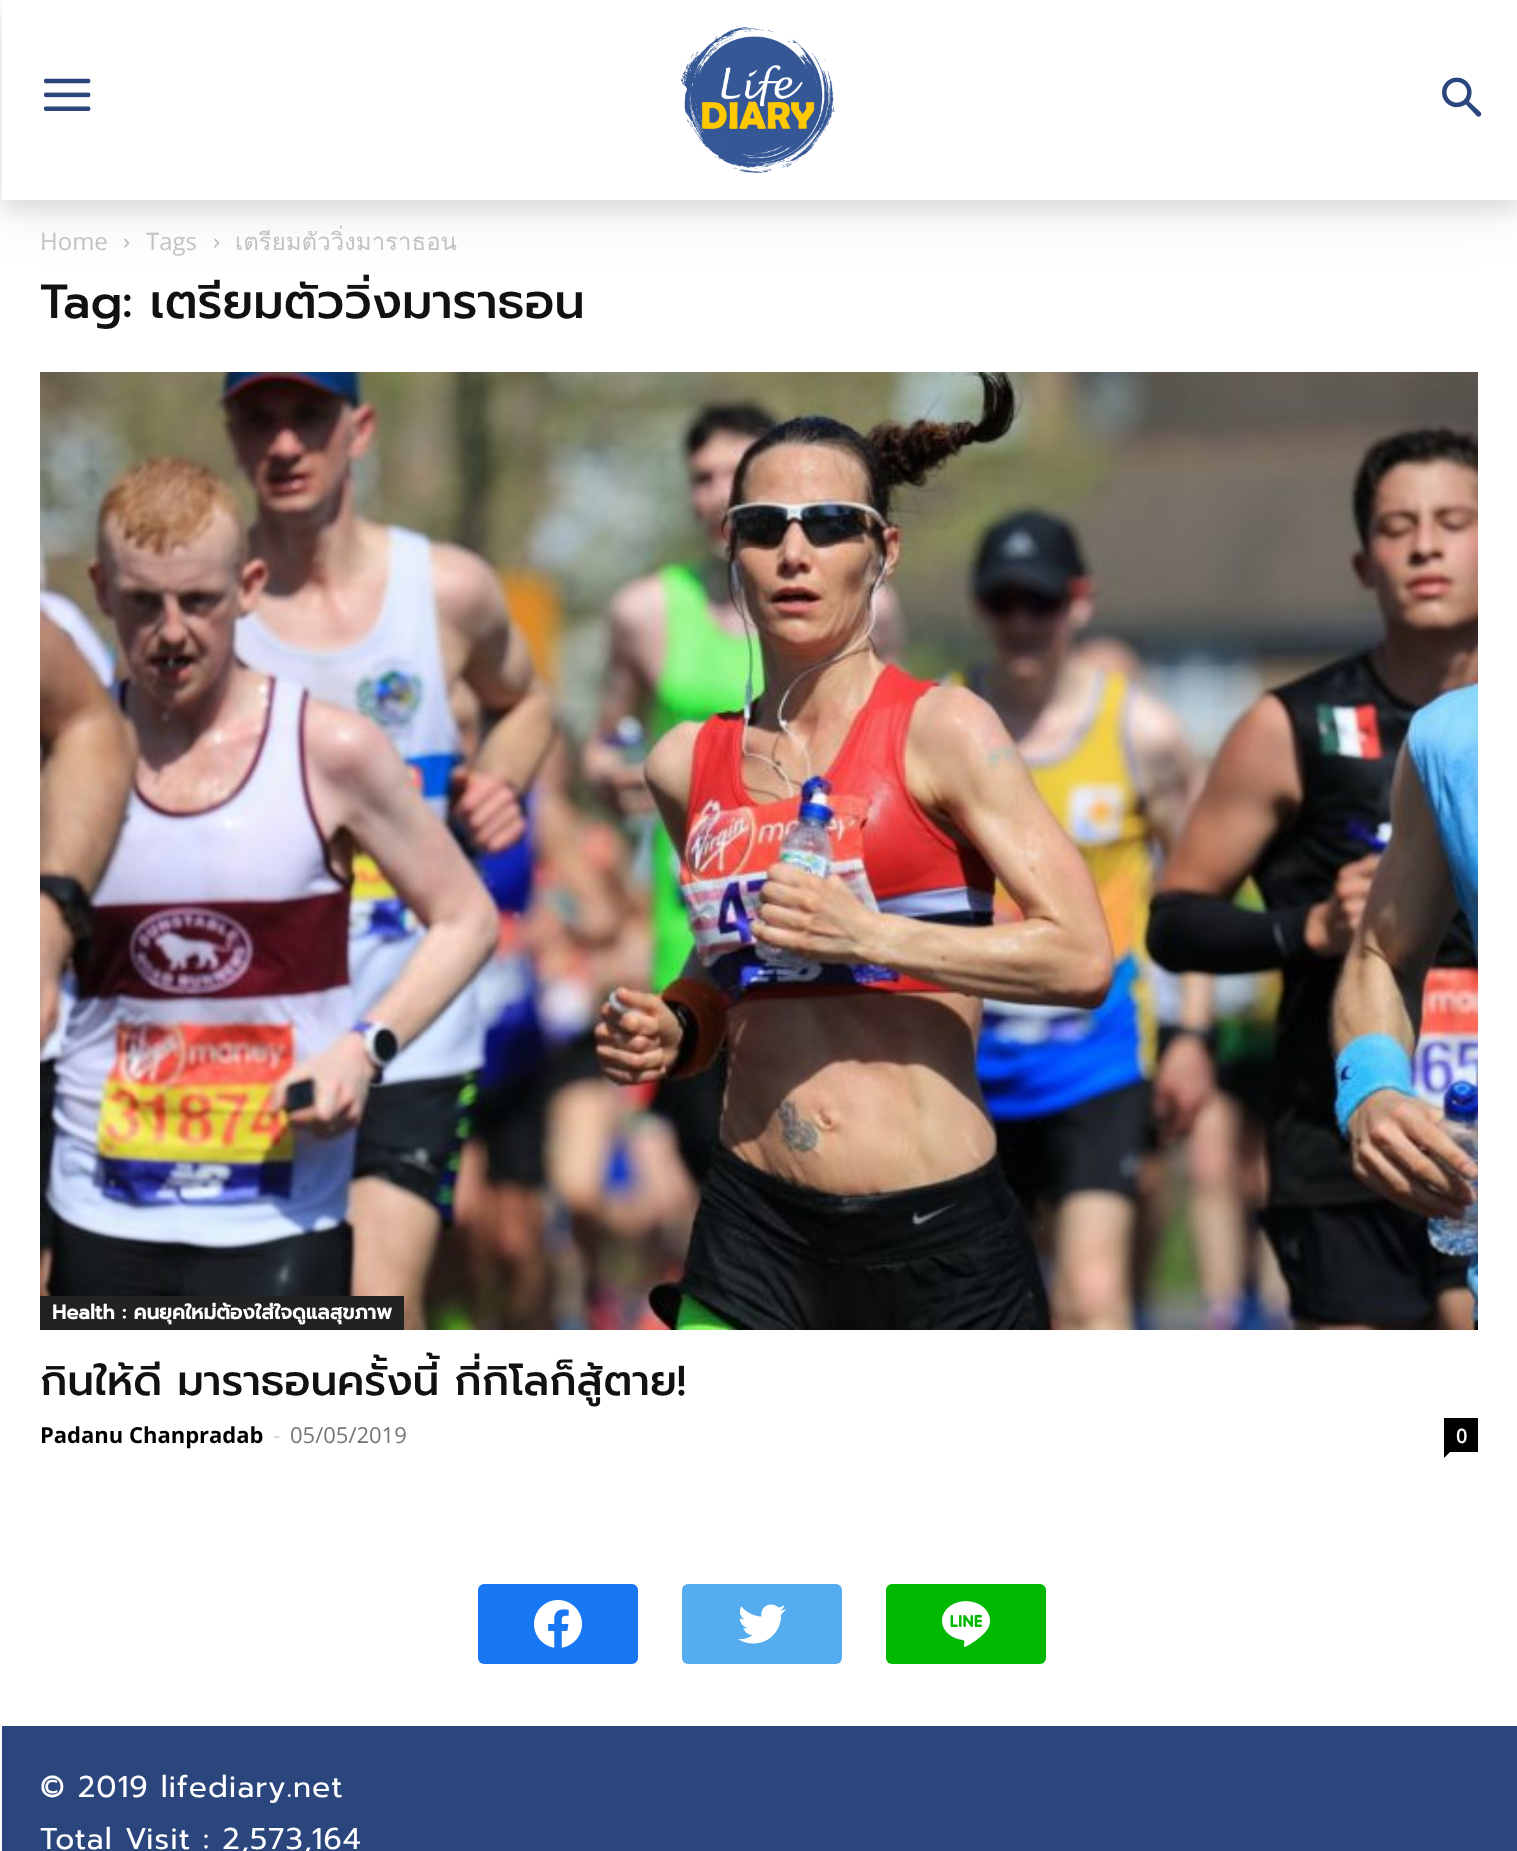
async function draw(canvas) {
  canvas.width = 1517
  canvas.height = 1851
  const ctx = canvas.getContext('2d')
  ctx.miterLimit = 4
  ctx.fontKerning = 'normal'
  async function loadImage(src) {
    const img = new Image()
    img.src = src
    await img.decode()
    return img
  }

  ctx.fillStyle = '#fff'
  ctx.fillRect(0, 0, 1517, 1851)
  ctx.drawImage(await loadImage('image0.png'), 44, 78, 47, 33)
  ctx.drawImage(await loadImage('image1.png'), 680, 27, 155, 147)
  ctx.drawImage(await loadImage('image2.png'), 1442, 77, 40, 40)
  ctx.drawImage(await loadImage('image3.png'), 124, 238, 6, 10)
  ctx.drawImage(await loadImage('image3.png'), 214, 238, 6, 10)
  ctx.save()
  ctx.beginPath()
  ctx.moveTo(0, 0)
  ctx.lineTo(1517, 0)
  ctx.lineTo(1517, 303)
  ctx.lineTo(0, 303)
  ctx.closePath()
  ctx.moveTo(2, 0)
  ctx.lineTo(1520, 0)
  ctx.lineTo(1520, 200)
  ctx.lineTo(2, 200)
  ctx.closePath()
  ctx.clip('evenodd')
  ctx.fillStyle = '#00000014'
  ctx.filter = 'blur(30px)'
  ctx.beginPath()
  ctx.rect(2, 12, 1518, 200)
  ctx.fill()
  ctx.filter = 'none'
  ctx.restore()
  ctx.save()
  ctx.beginPath()
  ctx.moveTo(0, 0)
  ctx.lineTo(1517, 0)
  ctx.lineTo(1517, 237)
  ctx.lineTo(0, 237)
  ctx.closePath()
  ctx.moveTo(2, 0)
  ctx.lineTo(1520, 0)
  ctx.lineTo(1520, 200)
  ctx.lineTo(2, 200)
  ctx.closePath()
  ctx.clip('evenodd')
  ctx.fillStyle = '#00000014'
  ctx.filter = 'blur(8px)'
  ctx.beginPath()
  ctx.rect(2, 12, 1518, 200)
  ctx.fill()
  ctx.filter = 'none'
  ctx.restore()
  ctx.font = '24px Open Sans'
  ctx.fillStyle = '#c3c3c3'
  ctx.fillText('Home', 40, 250)
  ctx.fillText('Tags', 146, 250)
  ctx.font = '24px Loma'
  ctx.fillText('เตรียมตัววิ่งมาราธอน', 235, 250)
  ctx.font = '500 48px Prompt'
  ctx.fillStyle = '#111'
  ctx.fillText('Tag: เตรียมตัววิ่งมาราธอน', 40, 318)
  ctx.drawImage(await loadImage('image4.png'), 40, 372, 1438, 958)
  ctx.fillStyle = '#222'
  ctx.fillRect(40, 1296, 364, 34)
  ctx.font = 'bold 20px Prompt'
  ctx.fillStyle = '#fff'
  ctx.fillText('Health : คนยุคใหม่ต้องใส่ใจดูแลสุขภาพ', 52, 1319)
  ctx.font = '500 42px Prompt'
  ctx.fillStyle = '#111'
  ctx.fillText('กินให้ดี มาราธอนครั้งนี้ กี่กิโลก็สู้ตาย!', 40, 1395)
  ctx.font = 'bold 22px Open Sans'
  ctx.fillStyle = '#000'
  ctx.fillText('Padanu Chanpradab', 40, 1443)
  ctx.font = '22px Open Sans'
  ctx.fillStyle = '#ccc'
  ctx.fillText('-', 273, 1443)
  ctx.fillStyle = '#767676'
  ctx.fillText('05/05/2019', 290, 1443)
  ctx.fillStyle = '#000'
  ctx.fillRect(1444, 1418, 34, 34)
  ctx.font = '600 20px Open Sans'
  ctx.fillStyle = '#fff'
  ctx.fillText('0', 1456, 1443)
  ctx.fillStyle = '#000'
  ctx.beginPath()
  ctx.moveTo(1444, 1452)
  ctx.lineTo(1450, 1452)
  ctx.lineTo(1444, 1458)
  ctx.closePath()
  ctx.fill()
  ctx.fillStyle = '#1877f2'
  ctx.beginPath()
  ctx.roundRect(478, 1584, 160, 80, 6)
  ctx.fill()
  ctx.drawImage(await loadImage('image5.png'), 534, 1600, 48, 48)
  ctx.fillStyle = '#55acee'
  ctx.beginPath()
  ctx.roundRect(682, 1584, 160, 80, 6)
  ctx.fill()
  ctx.drawImage(await loadImage('image6.png'), 738, 1604, 48, 40)
  ctx.fillStyle = '#00b900'
  ctx.beginPath()
  ctx.roundRect(886, 1584, 160, 80, 6)
  ctx.fill()
  ctx.drawImage(await loadImage('image7.png'), 942, 1601, 48, 46)
  ctx.fillStyle = '#2b467d'
  ctx.fillRect(2, 1726, 1515, 125)
  ctx.letterSpacing = '1px'
  ctx.font = '30px Prompt'
  ctx.fillStyle = '#fff'
  ctx.fillText('© 2019 lifediary.net', 40, 1797)
  ctx.fillText('Total Visit : 2,573,164', 40, 1849)
}

draw(document.querySelector('canvas'))
